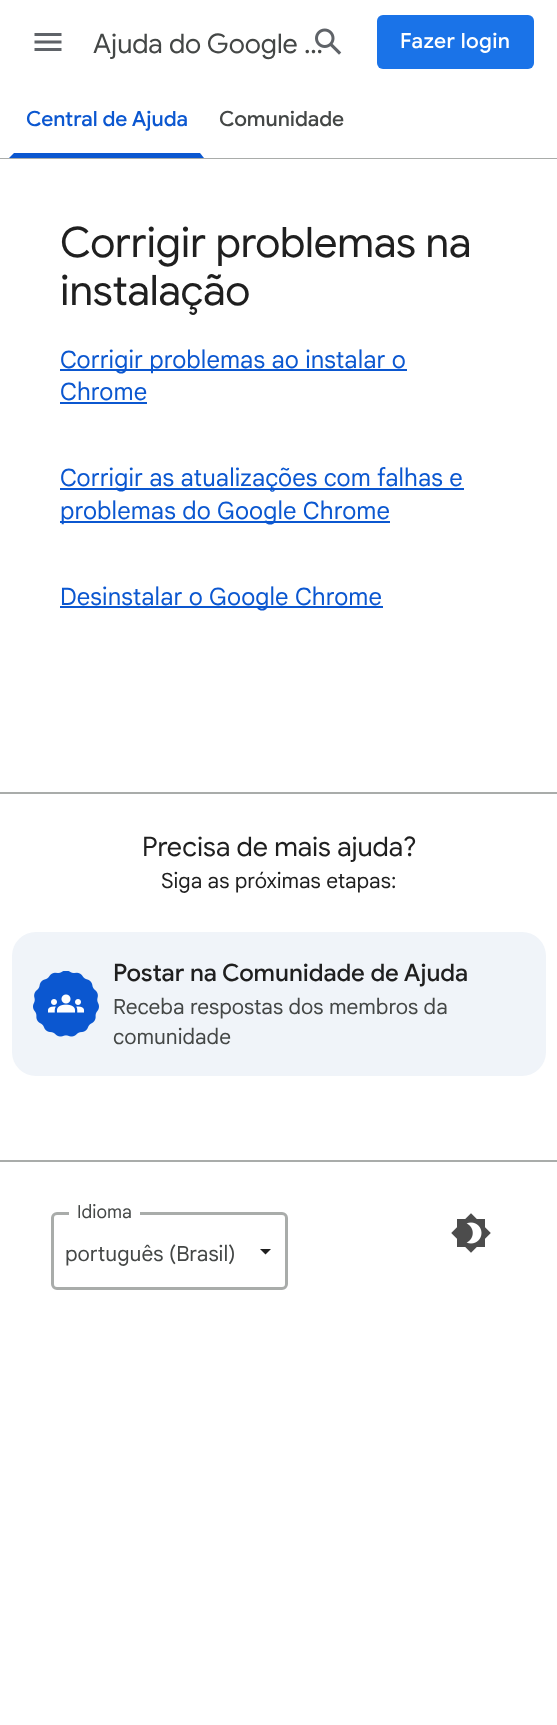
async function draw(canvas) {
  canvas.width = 557
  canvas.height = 1725
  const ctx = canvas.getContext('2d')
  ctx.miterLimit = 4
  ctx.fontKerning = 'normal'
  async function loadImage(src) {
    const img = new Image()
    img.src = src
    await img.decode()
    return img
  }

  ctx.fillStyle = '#fff'
  ctx.fillRect(0, 0, 557, 1725)
  ctx.drawImage(await loadImage('image0.png'), 34, 33, 28, 18)
  ctx.font = '27px Google Sans'
  ctx.fillStyle = '#444746'
  ctx.fillText('Ajuda do Google …', 93, 53)
  ctx.drawImage(await loadImage('image1.png'), 315, 28, 27, 27)
  ctx.fillStyle = '#1a73e8'
  ctx.beginPath()
  ctx.roundRect(377, 15, 157, 54, 6)
  ctx.fill()
  ctx.letterSpacing = '0.4px'
  ctx.font = '500 21px Google Sans'
  ctx.fillStyle = '#fff'
  ctx.fillText('Fazer login', 400, 48)
  ctx.fillStyle = '#a9acaa'
  ctx.fillRect(0, 158, 557, 1)
  ctx.fillStyle = '#0b57d0'
  ctx.beginPath()
  ctx.moveTo(204, 158)
  ctx.lineTo(9, 158)
  ctx.lineTo(14, 153)
  ctx.lineTo(200, 153)
  ctx.closePath()
  ctx.fill()
  ctx.letterSpacing = '0px'
  ctx.fillText('Central de Ajuda', 26, 126)
  ctx.fillStyle = '#444746'
  ctx.fillText('Comunidade', 219, 126)
  ctx.font = '42px Google Sans'
  ctx.fillStyle = '#1f1f1f'
  ctx.fillText('Corrigir problemas na', 60, 257)
  ctx.fillText('instalação', 60, 305)
  ctx.fillStyle = '#0b57d0'
  ctx.fillRect(60, 369, 347, 2)
  ctx.letterSpacing = '0.1px'
  ctx.font = '24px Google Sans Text'
  ctx.fillText('Corrigir problemas ao instalar o', 60, 368)
  ctx.fillText('Chrome', 60, 400)
  ctx.fillRect(60, 402, 87, 2)
  ctx.fillRect(60, 488, 404, 2)
  ctx.fillText('Corrigir as atualizações com falhas e', 60, 486)
  ctx.fillRect(60, 521, 330, 2)
  ctx.fillText('problemas do Google Chrome', 60, 519)
  ctx.fillRect(60, 606, 323, 2)
  ctx.fillText('Desinstalar o Google Chrome', 60, 605)
  ctx.fillStyle = '#a9acaa'
  ctx.fillRect(0, 792, 557, 2)
  ctx.letterSpacing = '0px'
  ctx.font = '27px Google Sans'
  ctx.fillStyle = '#1f1f1f'
  ctx.fillText('Precisa de mais ajuda?', 142, 856)
  ctx.font = '21px Google Sans Text'
  ctx.fillText('Siga as próximas etapas:', 161, 888)
  ctx.fillStyle = '#f0f4f9'
  ctx.beginPath()
  ctx.roundRect(12, 932, 534, 144, 24)
  ctx.fill()
  ctx.drawImage(await loadImage('image2.png'), 33, 971, 66, 66)
  ctx.drawImage(await loadImage('image3.png'), 48, 994, 36, 19)
  ctx.font = '500 24px Google Sans'
  ctx.fillStyle = '#1f1f1f'
  ctx.fillText('Postar na Comunidade de Ajuda', 113, 981)
  ctx.font = '21px Google Sans Text'
  ctx.fillStyle = '#444746'
  ctx.fillText('Receba respostas dos membros da', 113, 1014)
  ctx.fillText('comunidade', 113, 1044)
  ctx.fillStyle = '#a9acaa'
  ctx.fillRect(0, 1160, 557, 2)
  ctx.beginPath()
  ctx.roundRect(52.5, 1213.5, 234, 75, 4.5)
  ctx.strokeStyle = '#a9acaa'
  ctx.lineWidth = 3
  ctx.stroke()
  ctx.fillStyle = '#fff'
  ctx.fillRect(69, 1212, 71, 3)
  ctx.font = '18px Google Sans Text'
  ctx.fillStyle = '#444746'
  ctx.fillText('Idioma', 77, 1218)
  ctx.font = '21px Google Sans Text'
  ctx.fillText('português (Brasil)', 65, 1261)
  ctx.fillStyle = '#1f1f1f'
  ctx.beginPath()
  ctx.moveTo(260, 1249)
  ctx.lineTo(265.5, 1254.5)
  ctx.lineTo(271, 1249)
  ctx.closePath()
  ctx.fill()
  ctx.drawImage(await loadImage('image4.png'), 451, 1213, 40, 40)
}

draw(document.querySelector('canvas'))
